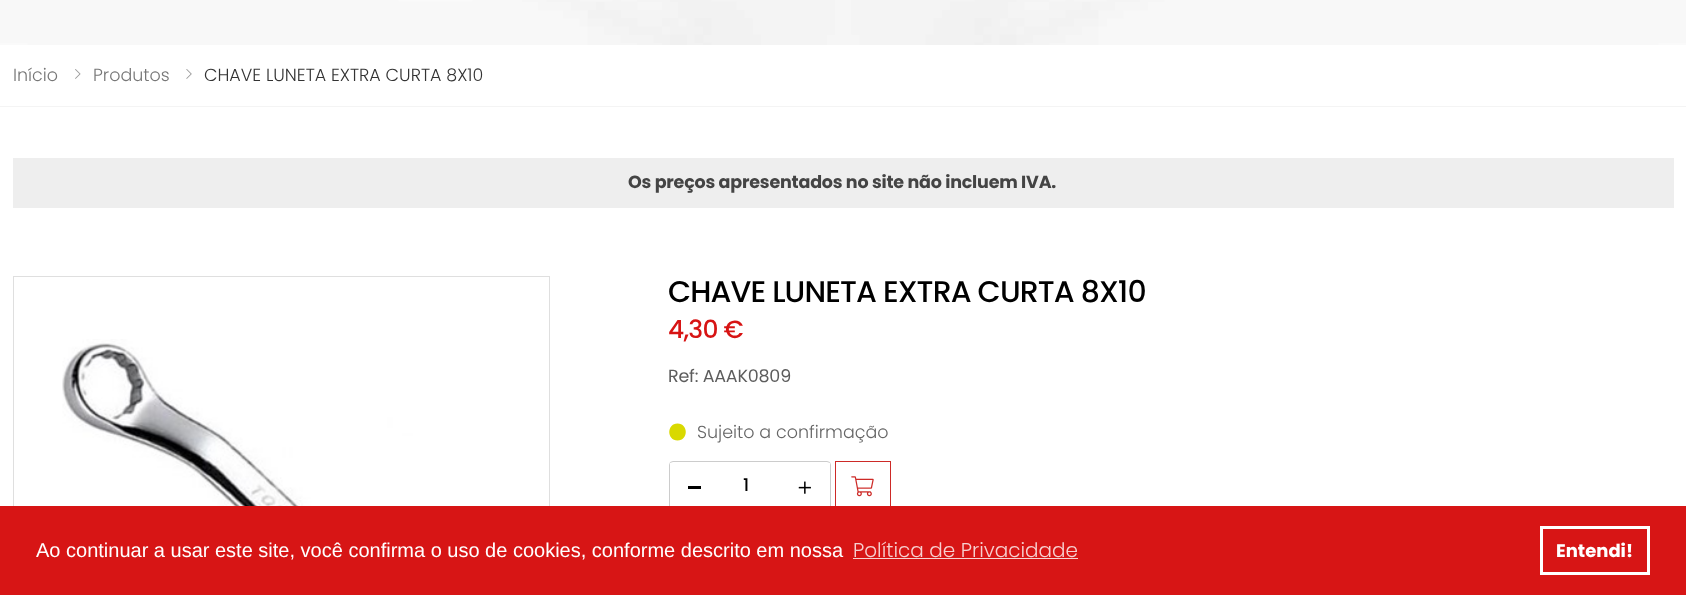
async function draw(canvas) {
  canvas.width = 1686
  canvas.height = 595
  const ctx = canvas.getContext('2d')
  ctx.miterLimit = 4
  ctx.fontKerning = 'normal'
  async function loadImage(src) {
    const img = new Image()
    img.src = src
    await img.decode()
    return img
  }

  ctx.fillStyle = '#fff'
  ctx.fillRect(0, 0, 1686, 595)
  ctx.drawImage(await loadImage('image0.png'), 0, 0, 1686, 45)
  ctx.fillStyle = '#f4f4f4'
  ctx.fillRect(0, 106, 1686, 1)
  ctx.font = '300 17.5px Poppins'
  ctx.fillStyle = '#777'
  ctx.fillText('Início', 13, 81)
  ctx.drawImage(await loadImage('image1.png'), 75, 69, 6, 10)
  ctx.fillText('Produtos', 93, 81)
  ctx.drawImage(await loadImage('image2.png'), 186, 69, 6, 10)
  ctx.fillStyle = '#333'
  ctx.fillText('CHAVE LUNETA EXTRA CURTA 8X10', 204, 81)
  ctx.fillStyle = '#eee'
  ctx.fillRect(13, 158, 1661, 50)
  ctx.letterSpacing = '-0.2px'
  ctx.font = 'bold 17.5px Poppins'
  ctx.fillStyle = '#444'
  ctx.fillText('Os preços apresentados no site não incluem IVA.', 628, 188)
  ctx.strokeStyle = '#dfdfdf'
  ctx.strokeRect(13.5, 276.5, 536, 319)
  ctx.drawImage(await loadImage('image3.png'), 62, 339, 371, 167)
  ctx.letterSpacing = '-0.9px'
  ctx.font = '500 30px Poppins'
  ctx.fillStyle = '#000'
  ctx.fillText('CHAVE LUNETA EXTRA CURTA 8X10', 668, 302)
  ctx.letterSpacing = '-0.75px'
  ctx.font = '500 25px Poppins'
  ctx.fillStyle = '#d71414'
  ctx.fillText('4,30 €', 668, 338)
  ctx.letterSpacing = '-0.2px'
  ctx.font = '17.5px Poppins'
  ctx.fillStyle = '#5d5d5d'
  ctx.fillText('Ref: AAAK0809', 668, 382)
  ctx.fillStyle = '#d9d900'
  ctx.beginPath()
  ctx.moveTo(677.5, 423.5)
  ctx.bezierCurveTo(666.5, 423.5, 666.5, 440.5, 677.5, 440.5)
  ctx.bezierCurveTo(688.5, 440.5, 688.5, 423.5, 677.5, 423.5)
  ctx.closePath()
  ctx.fill()
  ctx.letterSpacing = '0px'
  ctx.font = '300 17.5px Poppins'
  ctx.fillStyle = '#666'
  ctx.fillText('Sujeito a confirmação', 697, 438)
  ctx.beginPath()
  ctx.roundRect(669.5, 461.5, 161, 49, 3.5)
  ctx.strokeStyle = '#ccc'
  ctx.stroke()
  ctx.fillStyle = '#fff'
  ctx.fillRect(670, 463, 1, 2)
  ctx.fillStyle = '#000'
  ctx.fillRect(688, 486, 13, 3)
  ctx.font = '500 17.5px Poppins'
  ctx.fillText('1', 743, 491)
  ctx.fillStyle = '#fff'
  ctx.fillRect(829, 463, 1, 2)
  ctx.drawImage(await loadImage('image4.png'), 798, 481, 13, 13)
  ctx.strokeStyle = '#cd2a27'
  ctx.strokeRect(835.5, 461.5, 55, 49)
  ctx.drawImage(await loadImage('image5.png'), 851, 476, 23, 21)
  ctx.fillStyle = '#d71515'
  ctx.fillRect(0, 506, 1686, 89)
  ctx.font = '20px Liberation Sans'
  ctx.fillStyle = '#fff'
  ctx.fillText('Ao continuar a usar este site, você confirma o uso de cookies, conforme descrito em nossa', 36, 557)
  ctx.font = '300 20px Poppins'
  ctx.fillStyle = '#f7d0d0'
  ctx.fillText('Política de Privacidade', 853, 557)
  ctx.fillRect(853, 558, 225, 1)
  ctx.strokeStyle = '#fff'
  ctx.lineWidth = 3
  ctx.strokeRect(1541.5, 527.5, 107, 46)
  ctx.font = 'bold 18px Poppins'
  ctx.fillStyle = '#fff'
  ctx.fillText('Entendi!', 1556, 557)
}

draw(document.querySelector('canvas'))
